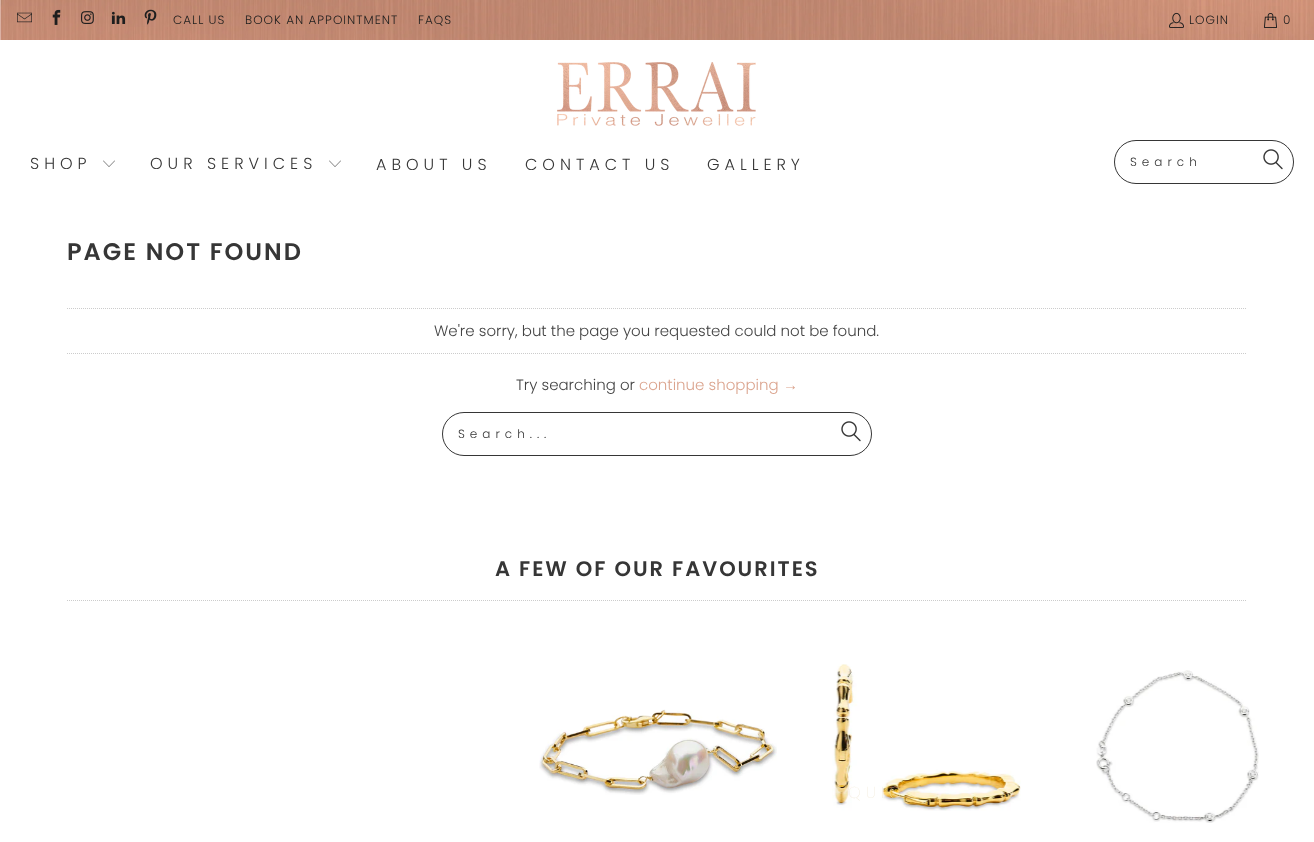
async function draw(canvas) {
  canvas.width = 1314
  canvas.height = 842
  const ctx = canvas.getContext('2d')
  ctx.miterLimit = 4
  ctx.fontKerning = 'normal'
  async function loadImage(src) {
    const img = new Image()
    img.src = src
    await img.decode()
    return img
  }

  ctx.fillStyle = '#fff'
  ctx.fillRect(0, 0, 1314, 842)
  ctx.drawImage(await loadImage('image0.png'), 0, 0, 1314, 40)
  ctx.drawImage(await loadImage('image1.png'), 17, 12, 15, 11)
  ctx.drawImage(await loadImage('image2.png'), 52, 9, 9, 16)
  ctx.drawImage(await loadImage('image3.png'), 81, 11, 13, 13)
  ctx.drawImage(await loadImage('image4.png'), 111, 11, 15, 13)
  ctx.drawImage(await loadImage('image5.png'), 144, 9, 13, 16)
  ctx.letterSpacing = '1px'
  ctx.font = '300 12px Poppins'
  ctx.fillStyle = '#1e1e1e'
  ctx.fillText('CALL US', 173, 24)
  ctx.fillText('BOOK AN APPOINTMENT', 245, 24)
  ctx.fillText('FAQS', 418, 24)
  ctx.drawImage(await loadImage('image6.png'), 1169, 12, 15, 16)
  ctx.fillText('LOGIN', 1189, 24)
  ctx.drawImage(await loadImage('image7.png'), 1263, 13, 15, 15)
  ctx.fillText('0', 1283, 24)
  ctx.drawImage(await loadImage('image8.png'), 557, 62, 199, 64)
  ctx.letterSpacing = '5px'
  ctx.font = '300 16px Poppins'
  ctx.fillStyle = '#363636'
  ctx.fillText('SHOP', 30, 169)
  ctx.drawImage(await loadImage('image9.png'), 103, 160, 12, 7)
  ctx.fillText('OUR SERVICES', 150, 169)
  ctx.drawImage(await loadImage('image9.png'), 329, 160, 12, 7)
  ctx.fillText('ABOUT US', 376, 170)
  ctx.fillText('CONTACT US', 525, 170)
  ctx.fillText('GALLERY', 707, 170)
  ctx.beginPath()
  ctx.roundRect(1114.5, 140.5, 179, 43, 21.5)
  ctx.strokeStyle = '#363636'
  ctx.stroke()
  ctx.font = '300 12px Poppins'
  ctx.fillText('Search', 1130, 166)
  ctx.drawImage(await loadImage('image10.png'), 1263, 149, 20, 21)
  ctx.letterSpacing = '2px'
  ctx.font = '600 24px Poppins'
  ctx.fillText('PAGE NOT FOUND', 67, 260)
  ctx.beginPath()
  ctx.moveTo(67, 308.5)
  ctx.lineTo(1247, 308.5)
  ctx.strokeStyle = '#ccc'
  ctx.setLineDash([1, 1])
  ctx.stroke()
  ctx.beginPath()
  ctx.moveTo(67, 353.5)
  ctx.lineTo(1247, 353.5)
  ctx.stroke()
  ctx.letterSpacing = '0px'
  ctx.font = '300 15px Poppins'
  ctx.fillStyle = '#444'
  ctx.fillText('We\'re sorry, but the page you requested could not be found.', 434, 336)
  ctx.fillText('Try searching or', 516, 390)
  ctx.fillStyle = '#dba48e'
  ctx.fillText('continue shopping', 639, 390)
  ctx.font = '15px Liberation Sans'
  ctx.fillText('→', 783, 390)
  ctx.beginPath()
  ctx.roundRect(442.5, 412.5, 429, 43, 21.5)
  ctx.strokeStyle = '#363636'
  ctx.setLineDash([])
  ctx.stroke()
  ctx.letterSpacing = '5px'
  ctx.font = '300 12px Poppins'
  ctx.fillStyle = '#363636'
  ctx.fillText('Search...', 458, 438)
  ctx.drawImage(await loadImage('image10.png'), 841, 421, 20, 21)
  ctx.letterSpacing = '2px'
  ctx.font = '600 21px Poppins'
  ctx.fillText('A FEW OF OUR FAVOURITES', 495, 576)
  ctx.beginPath()
  ctx.moveTo(67, 600.5)
  ctx.lineTo(1247, 600.5)
  ctx.strokeStyle = '#ccc'
  ctx.setLineDash([1, 1])
  ctx.stroke()
  ctx.drawImage(await loadImage('image11.png'), 539, 709, 238, 86)
  ctx.drawImage(await loadImage('image12.png'), 832, 664, 189, 147)
  ctx.letterSpacing = '5px'
  ctx.font = '200 16px Poppins'
  ctx.fillStyle = '#f0e8d5'
  ctx.fillText('QUIC', 848, 798)
  ctx.drawImage(await loadImage('image13.png'), 1096, 670, 163, 153)
}

draw(document.querySelector('canvas'))
